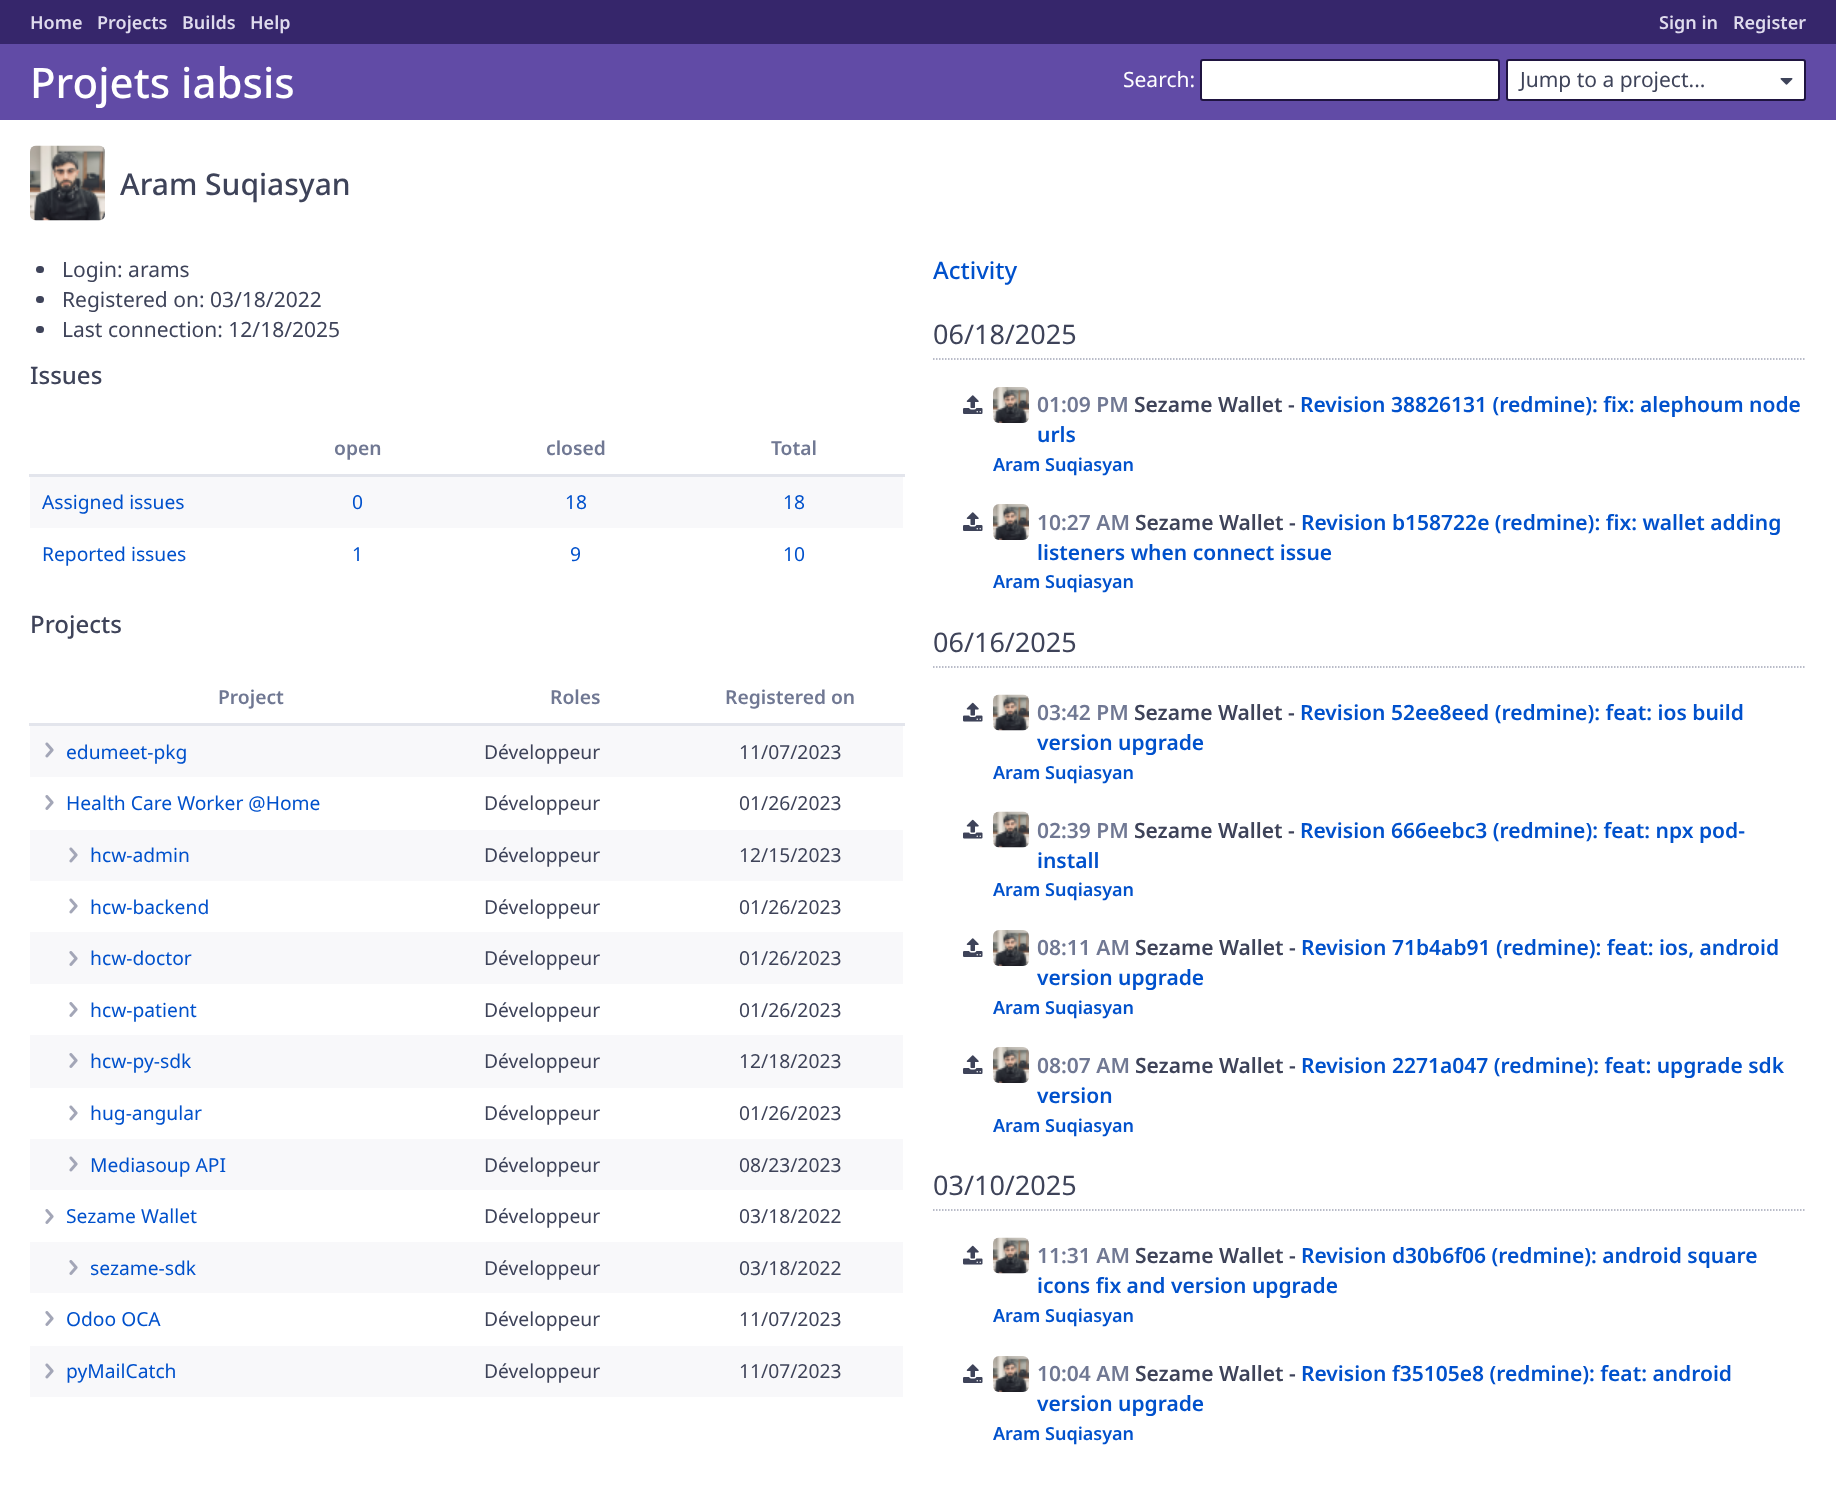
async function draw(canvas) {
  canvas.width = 1836
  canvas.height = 1485
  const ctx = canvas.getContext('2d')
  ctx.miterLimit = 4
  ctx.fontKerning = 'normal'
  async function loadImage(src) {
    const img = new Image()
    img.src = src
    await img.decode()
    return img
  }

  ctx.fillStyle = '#fff'
  ctx.fillRect(0, 0, 1836, 1485)
  ctx.fillStyle = '#36266b'
  ctx.fillRect(0, 0, 1836, 44)
  ctx.font = '600 18px Noto Sans'
  ctx.fillStyle = '#dfdbed'
  ctx.fillText('Home', 30, 29)
  ctx.fillText('Projects', 97, 29)
  ctx.fillText('Builds', 182, 29)
  ctx.fillText('Help', 250, 29)
  ctx.fillText('Sign in', 1659, 29)
  ctx.fillText('Register', 1733, 29)
  ctx.fillStyle = '#614ba6'
  ctx.fillRect(0, 44, 1836, 76)
  ctx.font = '500 42px Noto Sans'
  ctx.fillStyle = '#fff'
  ctx.fillText('Projets iabsis', 30, 98)
  ctx.font = '21px Noto Sans'
  ctx.fillText('Search:', 1123, 87)
  ctx.beginPath()
  ctx.roundRect(1201, 60, 298, 40, 2)
  ctx.fill()
  ctx.strokeStyle = '#1f1440'
  ctx.lineWidth = 2
  ctx.stroke()
  ctx.beginPath()
  ctx.roundRect(1507, 60, 298, 40, 2)
  ctx.fill()
  ctx.stroke()
  ctx.fillStyle = '#3e4359'
  ctx.fillText('Jump to a project...', 1520, 87)
  ctx.drawImage(await loadImage('image0.png'), 1780, 78, 13, 7)
  ctx.drawImage(await loadImage('image1.png'), 30, 145, 75, 76)
  ctx.font = '500 30px Noto Sans'
  ctx.fillText('Aram Suqiasyan', 120, 195)
  ctx.beginPath()
  ctx.roundRect(36, 266, 8, 7, 3.5)
  ctx.fill()
  ctx.font = '21px Noto Sans'
  ctx.fillText('Login: arams', 62, 277)
  ctx.beginPath()
  ctx.roundRect(36, 296, 8, 7, 3.5)
  ctx.fill()
  ctx.fillText('Registered on: 03/18/2022', 62, 307)
  ctx.beginPath()
  ctx.roundRect(36, 326, 8, 7, 3.5)
  ctx.fill()
  ctx.fillText('Last connection: 12/18/2025', 62, 337)
  ctx.font = '500 24px Noto Sans'
  ctx.fillText('Issues', 30, 384)
  ctx.font = '600 19.25px Noto Sans'
  ctx.fillStyle = '#707893'
  ctx.fillText('open', 334, 455)
  ctx.fillText('closed', 546, 455)
  ctx.fillStyle = '#e3e5ec'
  ctx.fillRect(29, 474, 876, 3)
  ctx.fillStyle = '#707893'
  ctx.fillText('Total', 771, 455)
  ctx.fillStyle = '#f8f8fa'
  ctx.fillRect(30, 477, 873, 51)
  ctx.font = '19.25px Noto Sans'
  ctx.fillStyle = '#0051cc'
  ctx.fillText('Assigned issues', 42, 509)
  ctx.fillText('0', 352, 509)
  ctx.fillText('18', 565, 509)
  ctx.fillText('18', 783, 509)
  ctx.fillText('Reported issues', 42, 561)
  ctx.fillText('1', 352, 561)
  ctx.fillText('9', 570, 561)
  ctx.fillText('10', 783, 561)
  ctx.font = '500 24px Noto Sans'
  ctx.fillStyle = '#3e4359'
  ctx.fillText('Projects', 30, 633)
  ctx.font = '600 19.25px Noto Sans'
  ctx.fillStyle = '#707893'
  ctx.fillText('Project', 218, 704)
  ctx.fillText('Roles', 550, 704)
  ctx.fillStyle = '#e3e5ec'
  ctx.fillRect(29, 723, 876, 3)
  ctx.fillStyle = '#707893'
  ctx.fillText('Registered on', 725, 704)
  ctx.fillStyle = '#f8f8fa'
  ctx.fillRect(30, 726, 873, 51)
  ctx.drawImage(await loadImage('image2.png'), 45, 742, 9, 16)
  ctx.font = '19.25px Noto Sans'
  ctx.fillStyle = '#0051cc'
  ctx.fillText('edumeet-pkg', 66, 759)
  ctx.fillStyle = '#3e4359'
  ctx.fillText('Développeur', 484, 759)
  ctx.fillText('11/07/2023', 739, 759)
  ctx.drawImage(await loadImage('image3.png'), 45, 795, 9, 15)
  ctx.fillStyle = '#0051cc'
  ctx.fillText('Health Care Worker @Home', 66, 810)
  ctx.fillStyle = '#3e4359'
  ctx.fillText('Développeur', 484, 810)
  ctx.fillText('01/26/2023', 739, 810)
  ctx.fillStyle = '#f8f8fa'
  ctx.fillRect(30, 830, 873, 51)
  ctx.drawImage(await loadImage('image2.png'), 69, 847, 9, 16)
  ctx.fillStyle = '#0051cc'
  ctx.fillText('hcw-admin', 90, 862)
  ctx.fillStyle = '#3e4359'
  ctx.fillText('Développeur', 484, 862)
  ctx.fillText('12/15/2023', 739, 862)
  ctx.drawImage(await loadImage('image4.png'), 69, 898, 9, 16)
  ctx.fillStyle = '#0051cc'
  ctx.fillText('hcw-backend', 90, 914)
  ctx.fillStyle = '#3e4359'
  ctx.fillText('Développeur', 484, 914)
  ctx.fillText('01/26/2023', 739, 914)
  ctx.fillStyle = '#f8f8fa'
  ctx.fillRect(30, 932, 873, 52)
  ctx.drawImage(await loadImage('image5.png'), 69, 951, 9, 15)
  ctx.fillStyle = '#0051cc'
  ctx.fillText('hcw-doctor', 90, 965)
  ctx.fillStyle = '#3e4359'
  ctx.fillText('Développeur', 484, 965)
  ctx.fillText('01/26/2023', 739, 965)
  ctx.drawImage(await loadImage('image3.png'), 69, 1002, 9, 15)
  ctx.fillStyle = '#0051cc'
  ctx.fillText('hcw-patient', 90, 1017)
  ctx.fillStyle = '#3e4359'
  ctx.fillText('Développeur', 484, 1017)
  ctx.fillText('01/26/2023', 739, 1017)
  ctx.fillStyle = '#f8f8fa'
  ctx.fillRect(30, 1035, 873, 53)
  ctx.drawImage(await loadImage('image5.png'), 69, 1053, 9, 15)
  ctx.fillStyle = '#0051cc'
  ctx.fillText('hcw-py-sdk', 90, 1068)
  ctx.fillStyle = '#3e4359'
  ctx.fillText('Développeur', 484, 1068)
  ctx.fillText('12/18/2023', 739, 1068)
  ctx.drawImage(await loadImage('image4.png'), 69, 1105, 9, 16)
  ctx.fillStyle = '#0051cc'
  ctx.fillText('hug-angular', 90, 1120)
  ctx.fillStyle = '#3e4359'
  ctx.fillText('Développeur', 484, 1120)
  ctx.fillText('01/26/2023', 739, 1120)
  ctx.fillStyle = '#f8f8fa'
  ctx.fillRect(30, 1139, 873, 51)
  ctx.drawImage(await loadImage('image2.png'), 69, 1156, 9, 16)
  ctx.fillStyle = '#0051cc'
  ctx.fillText('Mediasoup API', 90, 1172)
  ctx.fillStyle = '#3e4359'
  ctx.fillText('Développeur', 484, 1172)
  ctx.fillText('08/23/2023', 739, 1172)
  ctx.drawImage(await loadImage('image3.png'), 45, 1209, 9, 15)
  ctx.fillStyle = '#0051cc'
  ctx.fillText('Sezame Wallet', 66, 1223)
  ctx.fillStyle = '#3e4359'
  ctx.fillText('Développeur', 484, 1223)
  ctx.fillText('03/18/2022', 739, 1223)
  ctx.fillStyle = '#f8f8fa'
  ctx.fillRect(30, 1242, 873, 51)
  ctx.drawImage(await loadImage('image5.png'), 69, 1260, 9, 15)
  ctx.fillStyle = '#0051cc'
  ctx.fillText('sezame-sdk', 90, 1275)
  ctx.fillStyle = '#3e4359'
  ctx.fillText('Développeur', 484, 1275)
  ctx.fillText('03/18/2022', 739, 1275)
  ctx.drawImage(await loadImage('image3.png'), 45, 1311, 9, 15)
  ctx.fillStyle = '#0051cc'
  ctx.fillText('Odoo OCA', 66, 1326)
  ctx.fillStyle = '#3e4359'
  ctx.fillText('Développeur', 484, 1326)
  ctx.fillText('11/07/2023', 739, 1326)
  ctx.fillStyle = '#f8f8fa'
  ctx.fillRect(30, 1346, 873, 51)
  ctx.drawImage(await loadImage('image2.png'), 45, 1363, 9, 16)
  ctx.fillStyle = '#0051cc'
  ctx.fillText('pyMailCatch', 66, 1378)
  ctx.fillStyle = '#3e4359'
  ctx.fillText('Développeur', 484, 1378)
  ctx.fillText('11/07/2023', 739, 1378)
  ctx.font = '500 24px Noto Sans'
  ctx.fillStyle = '#0051cc'
  ctx.fillText('Activity', 933, 279)
  ctx.beginPath()
  ctx.moveTo(933, 359)
  ctx.lineTo(1806, 359)
  ctx.strokeStyle = '#a3a6b7'
  ctx.lineWidth = 1.5
  ctx.setLineDash([1.5, 1.5])
  ctx.stroke()
  ctx.font = '27px Noto Sans'
  ctx.fillStyle = '#3e4359'
  ctx.fillText('06/18/2025', 933, 344)
  ctx.drawImage(await loadImage('image6.png'), 963, 395, 20, 19)
  ctx.drawImage(await loadImage('image7.png'), 993, 387, 36, 36)
  ctx.font = '600 21px Noto Sans'
  ctx.fillStyle = '#707893'
  ctx.fillText('01:09 PM', 1037, 412)
  ctx.fillStyle = '#3e4359'
  ctx.fillText('Sezame Wallet -', 1134, 412)
  ctx.fillStyle = '#0051cc'
  ctx.fillText('Revision 38826131 (redmine): fix: alephoum node', 1300, 412)
  ctx.fillText('urls', 1037, 442)
  ctx.font = '600 18px Noto Sans'
  ctx.fillText('Aram Suqiasyan', 993, 471)
  ctx.drawImage(await loadImage('image6.png'), 963, 512, 20, 19)
  ctx.drawImage(await loadImage('image8.png'), 993, 504, 36, 36)
  ctx.font = '600 21px Noto Sans'
  ctx.fillStyle = '#707893'
  ctx.fillText('10:27 AM', 1037, 530)
  ctx.fillStyle = '#3e4359'
  ctx.fillText('Sezame Wallet -', 1135, 530)
  ctx.fillStyle = '#0051cc'
  ctx.fillText('Revision b158722e (redmine): fix: wallet adding', 1301, 530)
  ctx.fillText('listeners when connect issue', 1037, 560)
  ctx.font = '600 18px Noto Sans'
  ctx.fillText('Aram Suqiasyan', 993, 588)
  ctx.beginPath()
  ctx.moveTo(933, 667)
  ctx.lineTo(1806, 667)
  ctx.stroke()
  ctx.font = '27px Noto Sans'
  ctx.fillStyle = '#3e4359'
  ctx.fillText('06/16/2025', 933, 652)
  ctx.drawImage(await loadImage('image9.png'), 963, 702, 20, 20)
  ctx.drawImage(await loadImage('image10.png'), 993, 694, 36, 37)
  ctx.font = '600 21px Noto Sans'
  ctx.fillStyle = '#707893'
  ctx.fillText('03:42 PM', 1037, 720)
  ctx.fillStyle = '#3e4359'
  ctx.fillText('Sezame Wallet -', 1134, 720)
  ctx.fillStyle = '#0051cc'
  ctx.fillText('Revision 52ee8eed (redmine): feat: ios build', 1300, 720)
  ctx.fillText('version upgrade', 1037, 750)
  ctx.font = '600 18px Noto Sans'
  ctx.fillText('Aram Suqiasyan', 993, 779)
  ctx.drawImage(await loadImage('image9.png'), 963, 819, 20, 20)
  ctx.drawImage(await loadImage('image10.png'), 993, 811, 36, 37)
  ctx.font = '600 21px Noto Sans'
  ctx.fillStyle = '#707893'
  ctx.fillText('02:39 PM', 1037, 838)
  ctx.fillStyle = '#3e4359'
  ctx.fillText('Sezame Wallet -', 1134, 838)
  ctx.fillStyle = '#0051cc'
  ctx.fillText('Revision 666eebc3 (redmine): feat: npx pod-', 1300, 838)
  ctx.fillText('install', 1037, 868)
  ctx.font = '600 18px Noto Sans'
  ctx.fillText('Aram Suqiasyan', 993, 896)
  ctx.drawImage(await loadImage('image6.png'), 963, 938, 20, 19)
  ctx.drawImage(await loadImage('image7.png'), 993, 930, 36, 36)
  ctx.font = '600 21px Noto Sans'
  ctx.fillStyle = '#707893'
  ctx.fillText('08:11 AM', 1037, 955)
  ctx.fillStyle = '#3e4359'
  ctx.fillText('Sezame Wallet -', 1135, 955)
  ctx.fillStyle = '#0051cc'
  ctx.fillText('Revision 71b4ab91 (redmine): feat: ios, android', 1301, 955)
  ctx.fillText('version upgrade', 1037, 985)
  ctx.font = '600 18px Noto Sans'
  ctx.fillText('Aram Suqiasyan', 993, 1014)
  ctx.drawImage(await loadImage('image6.png'), 963, 1055, 20, 19)
  ctx.drawImage(await loadImage('image7.png'), 993, 1047, 36, 36)
  ctx.font = '600 21px Noto Sans'
  ctx.fillStyle = '#707893'
  ctx.fillText('08:07 AM', 1037, 1073)
  ctx.fillStyle = '#3e4359'
  ctx.fillText('Sezame Wallet -', 1135, 1073)
  ctx.fillStyle = '#0051cc'
  ctx.fillText('Revision 2271a047 (redmine): feat: upgrade sdk', 1301, 1073)
  ctx.fillText('version', 1037, 1103)
  ctx.font = '600 18px Noto Sans'
  ctx.fillText('Aram Suqiasyan', 993, 1132)
  ctx.beginPath()
  ctx.moveTo(933, 1210)
  ctx.lineTo(1806, 1210)
  ctx.stroke()
  ctx.font = '27px Noto Sans'
  ctx.fillStyle = '#3e4359'
  ctx.fillText('03/10/2025', 933, 1195)
  ctx.drawImage(await loadImage('image9.png'), 963, 1245, 20, 20)
  ctx.drawImage(await loadImage('image11.png'), 993, 1237, 36, 37)
  ctx.font = '600 21px Noto Sans'
  ctx.fillStyle = '#707893'
  ctx.fillText('11:31 AM', 1037, 1263)
  ctx.fillStyle = '#3e4359'
  ctx.fillText('Sezame Wallet -', 1135, 1263)
  ctx.fillStyle = '#0051cc'
  ctx.fillText('Revision d30b6f06 (redmine): android square', 1301, 1263)
  ctx.fillText('icons fix and version upgrade', 1037, 1293)
  ctx.font = '600 18px Noto Sans'
  ctx.fillText('Aram Suqiasyan', 993, 1322)
  ctx.drawImage(await loadImage('image6.png'), 963, 1364, 20, 19)
  ctx.drawImage(await loadImage('image7.png'), 993, 1356, 36, 36)
  ctx.font = '600 21px Noto Sans'
  ctx.fillStyle = '#707893'
  ctx.fillText('10:04 AM', 1037, 1381)
  ctx.fillStyle = '#3e4359'
  ctx.fillText('Sezame Wallet -', 1135, 1381)
  ctx.fillStyle = '#0051cc'
  ctx.fillText('Revision f35105e8 (redmine): feat: android', 1301, 1381)
  ctx.fillText('version upgrade', 1037, 1411)
  ctx.font = '600 18px Noto Sans'
  ctx.fillText('Aram Suqiasyan', 993, 1440)
}

draw(document.querySelector('canvas'))
